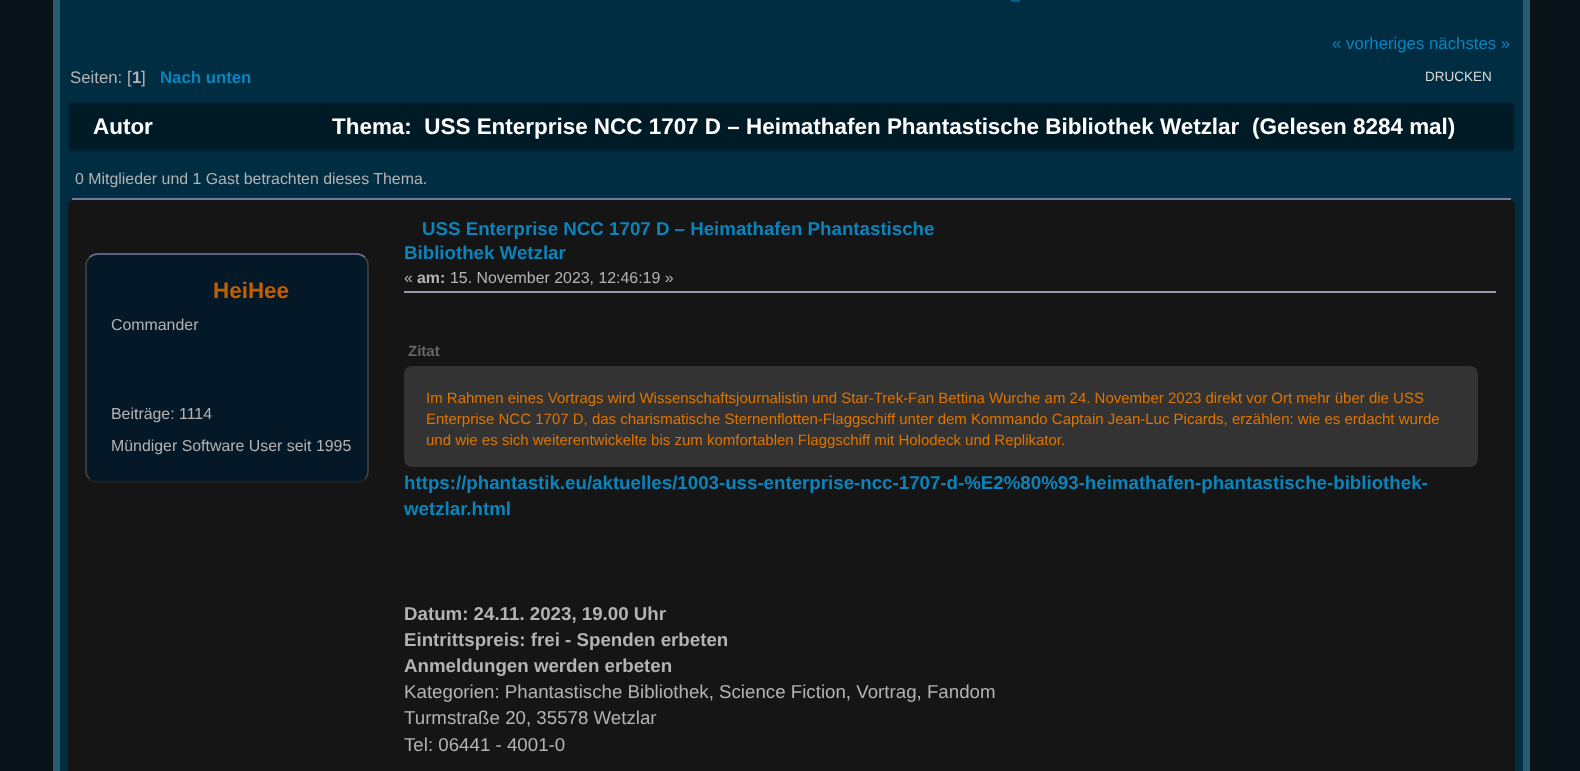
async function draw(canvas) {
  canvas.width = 1580
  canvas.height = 771
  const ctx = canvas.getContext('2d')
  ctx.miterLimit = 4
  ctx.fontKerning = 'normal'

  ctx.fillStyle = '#091219'
  ctx.fillRect(0, 0, 1580, 771)
  ctx.fillStyle = '#285b70'
  ctx.fillRect(53, 0, 1477, 771)
  ctx.fillStyle = '#002d42'
  ctx.fillRect(60, 0, 1463, 771)
  ctx.font = '16px Liberation Sans'
  ctx.fillStyle = '#0b84bc'
  ctx.fillText('–', 1011, 5)
  ctx.font = '16.8px Liberation Sans'
  ctx.fillText('« vorheriges nächstes »', 1332, 49)
  ctx.fillStyle = '#b3b3b3'
  ctx.fillText('Seiten: [', 70, 83)
  ctx.font = 'bold 16.8px Liberation Sans'
  ctx.fillText('1', 132, 83)
  ctx.font = '16.8px Liberation Sans'
  ctx.fillText(']', 141, 83)
  ctx.font = 'bold 16.8px Liberation Sans'
  ctx.fillStyle = '#0b84bc'
  ctx.fillText('Nach unten', 160, 83)
  ctx.font = '13.5px Liberation Sans'
  ctx.fillStyle = '#ddd'
  ctx.fillText('DRUCKEN', 1425, 81)
  ctx.fillStyle = '#001a26'
  ctx.beginPath()
  ctx.roundRect(69, 103, 1445, 48, 4)
  ctx.fill()
  ctx.strokeStyle = '#002335'
  ctx.lineWidth = 2
  ctx.stroke()
  ctx.font = 'bold 22.45px Liberation Sans'
  ctx.fillStyle = '#fff'
  ctx.fillText('Autor', 93, 134)
  ctx.fillText('Thema:  USS Enterprise NCC 1707 D – Heimathafen Phantastische Bibliothek Wetzlar', 332, 134)
  ctx.fillText('(Gelesen 8284 mal)', 1252, 134)
  ctx.font = '15.9px Liberation Sans'
  ctx.fillStyle = '#b3b3b3'
  ctx.fillText('0 Mitglieder und 1 Gast betrachten dieses Thema.', 75, 184)
  ctx.fillStyle = '#151515'
  ctx.fillRect(68, 216, 1447, 555)
  ctx.beginPath()
  ctx.roundRect(68, 198, 1447, 18, [9, 9, 0, 0])
  ctx.fill()
  ctx.fillStyle = '#779'
  ctx.fillRect(72, 198, 1439, 2)
  ctx.fillStyle = '#051828'
  ctx.beginPath()
  ctx.roundRect(86, 254, 283, 229, 12)
  ctx.fill()
  ctx.beginPath()
  ctx.moveTo(89.5, 257.5)
  ctx.bezierCurveTo(91.5, 255.5, 94.5, 254, 97.5, 254)
  ctx.lineTo(357, 254)
  ctx.bezierCurveTo(360, 254, 363, 255.5, 365, 257.5)
  ctx.strokeStyle = '#779'
  ctx.lineWidth = 1.5
  ctx.stroke()
  ctx.beginPath()
  ctx.moveTo(365, 257.5)
  ctx.bezierCurveTo(367, 259.5, 368, 262.5, 368, 265.5)
  ctx.lineTo(368, 471)
  ctx.bezierCurveTo(368, 474, 367, 477, 365, 479)
  ctx.strokeStyle = '#444'
  ctx.stroke()
  ctx.beginPath()
  ctx.moveTo(365, 479)
  ctx.bezierCurveTo(363, 481, 360, 482, 357, 482)
  ctx.lineTo(97.5, 482)
  ctx.bezierCurveTo(94.5, 482, 91.5, 481, 89.5, 479)
  ctx.strokeStyle = '#252525'
  ctx.stroke()
  ctx.beginPath()
  ctx.moveTo(89.5, 479)
  ctx.bezierCurveTo(87.5, 477, 86, 474, 86, 471)
  ctx.lineTo(86, 265.5)
  ctx.bezierCurveTo(86, 262.5, 87.5, 259.5, 89.5, 257.5)
  ctx.strokeStyle = '#444'
  ctx.stroke()
  ctx.font = 'bold 22.45px Liberation Sans'
  ctx.fillStyle = '#c06002'
  ctx.fillText('HeiHee', 213, 298)
  ctx.font = '15.9px Liberation Sans'
  ctx.fillStyle = '#b3b3b3'
  ctx.fillText('Commander', 111, 330)
  ctx.fillText('Beiträge: 1114', 111, 419)
  ctx.fillText('Mündiger Software User seit 1995', 111, 451)
  ctx.font = 'bold 18.72px Liberation Sans'
  ctx.fillStyle = '#0b84bc'
  ctx.fillText('USS Enterprise NCC 1707 D – Heimathafen Phantastische', 422, 235)
  ctx.fillText('Bibliothek Wetzlar', 404, 259)
  ctx.font = '15.9px Liberation Sans'
  ctx.fillStyle = '#b3b3b3'
  ctx.fillText('«', 404, 283)
  ctx.font = 'bold 15.9px Liberation Sans'
  ctx.fillText('am:', 417, 283)
  ctx.font = '15.9px Liberation Sans'
  ctx.fillText('15. November 2023, 12:46:19 »', 450, 283)
  ctx.fillStyle = '#99a'
  ctx.fillRect(404, 291, 1092, 2)
  ctx.font = 'bold 15px Liberation Sans'
  ctx.fillStyle = '#666'
  ctx.fillText('Zitat', 408, 356)
  ctx.fillStyle = '#333'
  ctx.beginPath()
  ctx.roundRect(404, 366, 1074, 101, 8)
  ctx.fill()
  ctx.font = '15px Liberation Sans'
  ctx.fillStyle = '#df7401'
  ctx.fillText('Im Rahmen eines Vortrags wird Wissenschaftsjournalistin und Star-Trek-Fan Bettina Wurche am 24. November 2023 direkt vor Ort mehr über die USS', 426, 403)
  ctx.fillText('Enterprise NCC 1707 D, das charismatische Sternenflotten-Flaggschiff unter dem Kommando Captain Jean-Luc Picards, erzählen: wie es erdacht wurde', 426, 424)
  ctx.fillText('und wie es sich weiterentwickelte bis zum komfortablen Flaggschiff mit Holodeck und Replikator.', 426, 445)
  ctx.font = 'bold 18.72px Liberation Sans'
  ctx.fillStyle = '#0b84bc'
  ctx.fillText('https://phantastik.eu/aktuelles/1003-uss-enterprise-ncc-1707-d-%E2%80%93-heimathafen-phantastische-bibliothek-', 404, 489)
  ctx.fillText('wetzlar.html', 404, 515)
  ctx.fillStyle = '#b3b3b3'
  ctx.fillText('Datum: 24.11. 2023, 19.00 Uhr', 404, 620)
  ctx.fillText('Eintrittspreis: frei - Spenden erbeten', 404, 646)
  ctx.fillText('Anmeldungen werden erbeten', 404, 672)
  ctx.font = '18.72px Liberation Sans'
  ctx.fillText('Kategorien: Phantastische Bibliothek, Science Fiction, Vortrag, Fandom', 404, 698)
  ctx.fillText('Turmstraße 20, 35578 Wetzlar', 404, 724)
  ctx.fillText('Tel: 06441 - 4001-0', 404, 751)
}

draw(document.querySelector('canvas'))
